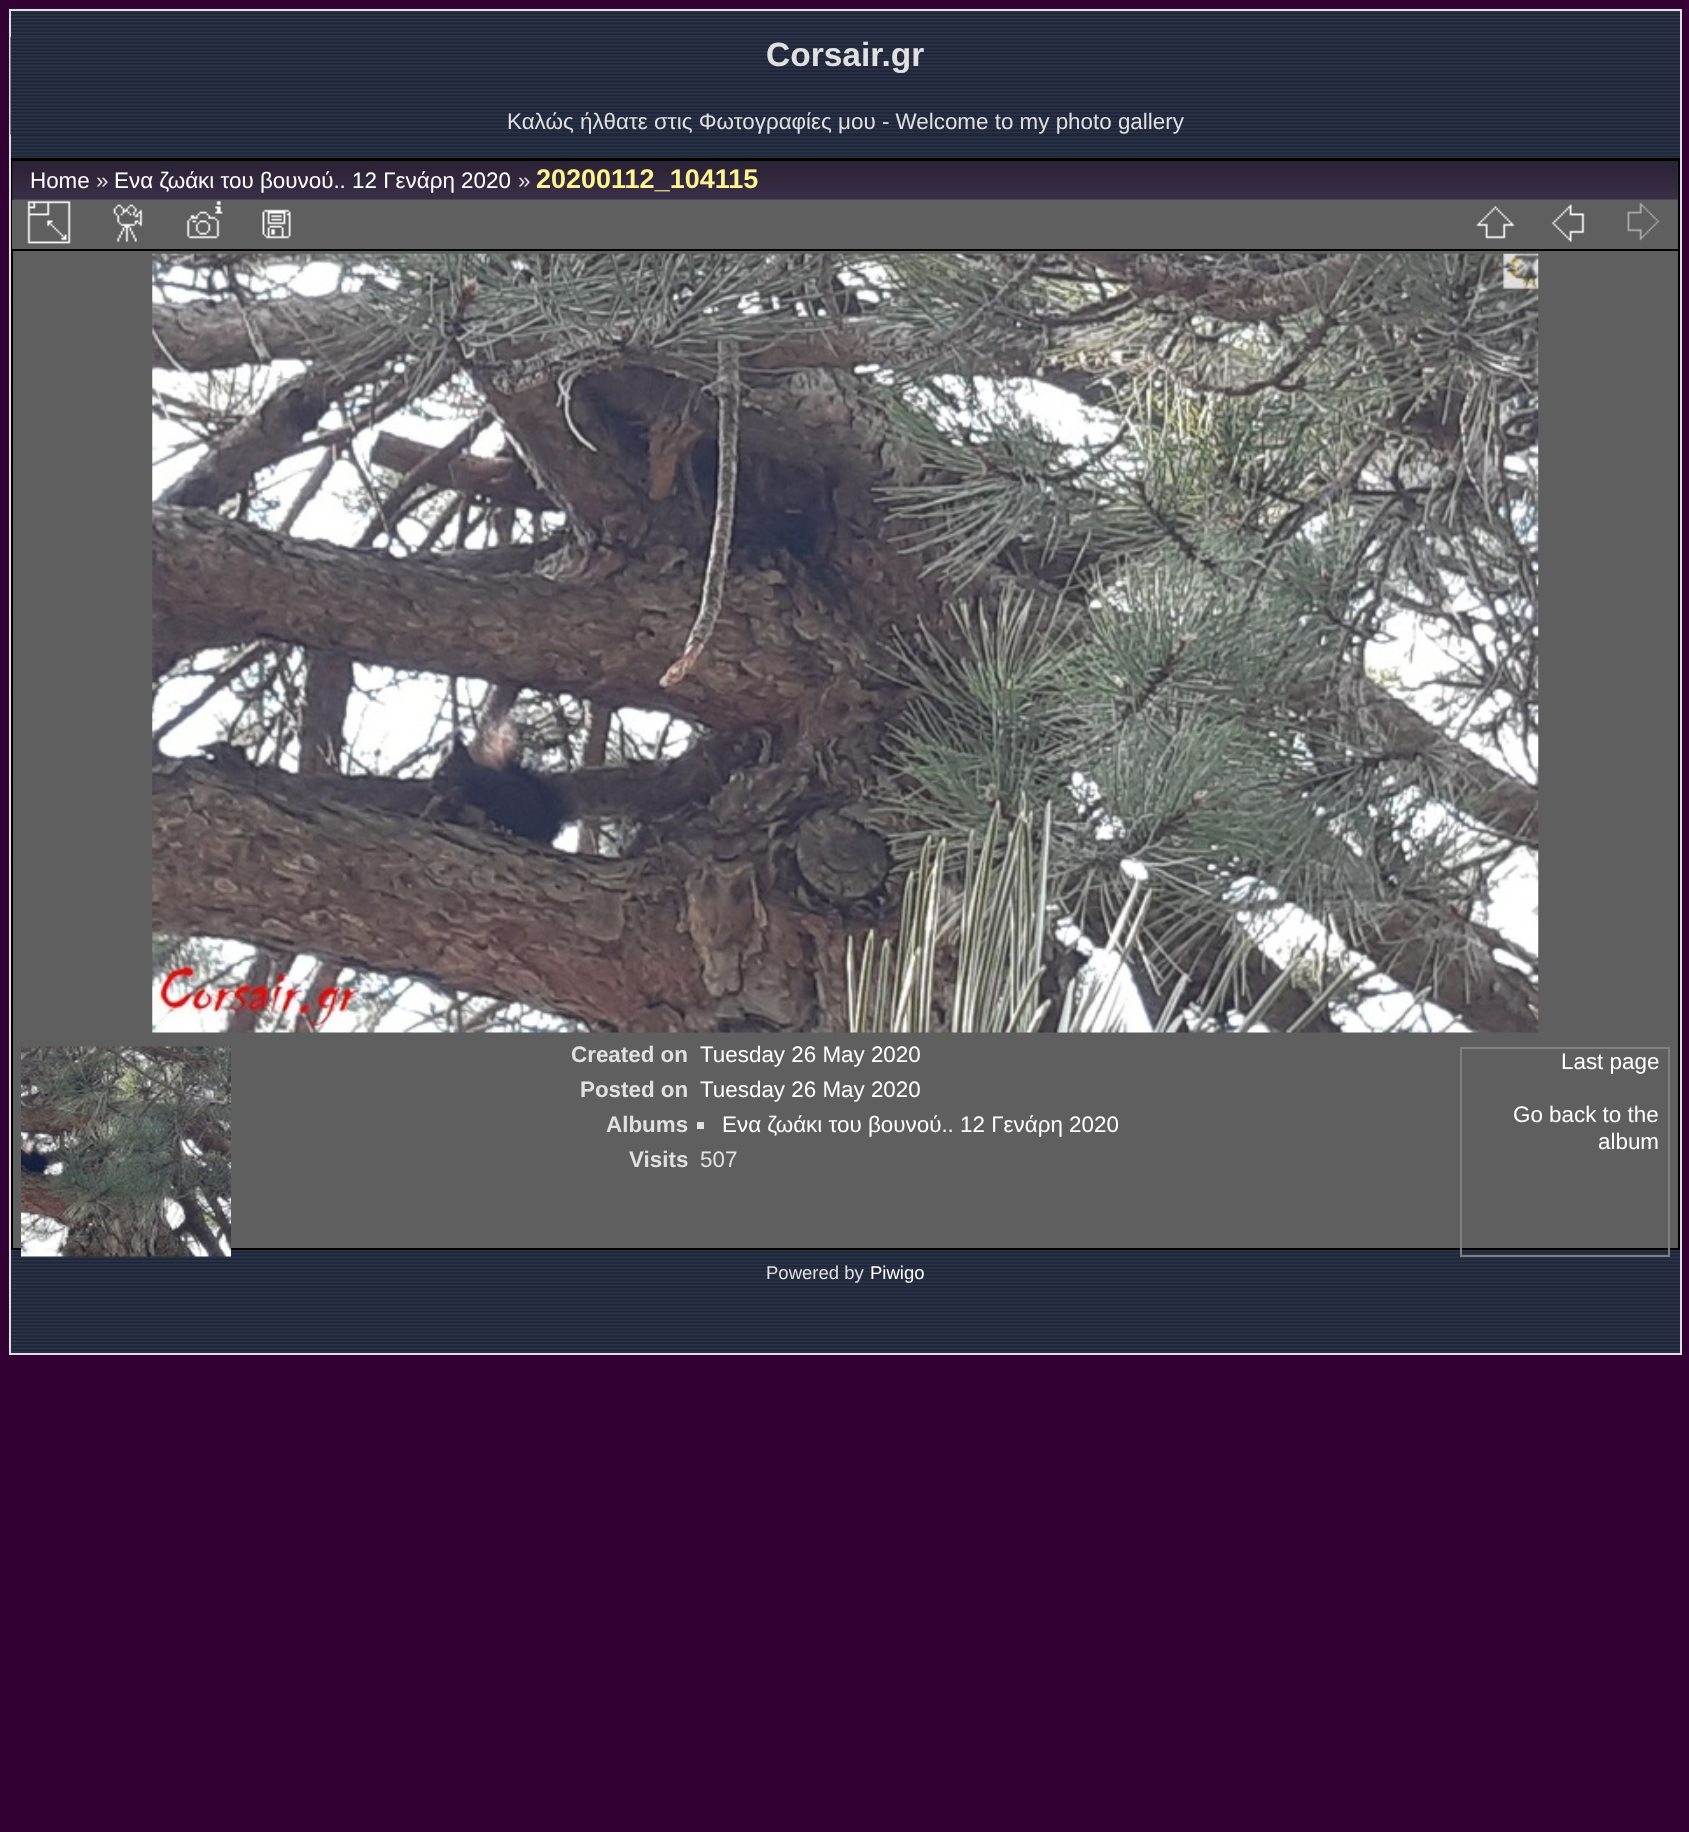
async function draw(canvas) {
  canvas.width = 1689
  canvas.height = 1832
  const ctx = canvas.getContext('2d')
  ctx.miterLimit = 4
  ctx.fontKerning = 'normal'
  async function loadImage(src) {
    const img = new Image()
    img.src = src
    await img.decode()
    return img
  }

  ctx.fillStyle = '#303'
  ctx.fillRect(0, 0, 1689, 1832)
  ctx.drawImage(await loadImage('image0.png'), 8, 8, 1674, 1347)
  ctx.strokeStyle = '#e0e0e0'
  ctx.lineWidth = 2
  ctx.strokeRect(10, 10, 1671, 1344)
  ctx.drawImage(await loadImage('image1.png'), 10, 36, 1670, 99)
  ctx.font = 'bold 33.5px Liberation Sans'
  ctx.fillStyle = '#e0e0e0'
  ctx.fillText('Corsair.gr', 766, 66)
  ctx.font = '22.4px Liberation Sans'
  ctx.fillText('Καλώς ήλθατε στις Φωτογραφίες μου - Welcome to my photo gallery', 507, 129)
  ctx.fillStyle = '#5f5f5f'
  ctx.fillRect(13, 199, 1665, 1049)
  ctx.strokeStyle = '#000'
  ctx.strokeRect(12, 159, 1667, 1090)
  ctx.drawImage(await loadImage('image2.png'), 12, 159, 1667, 41)
  ctx.fillStyle = '#000'
  ctx.fillRect(12, 159, 1666, 2)
  ctx.fillStyle = '#fff'
  ctx.fillText('Home', 30, 188)
  ctx.fillStyle = '#e0e0e0'
  ctx.fillText('»', 96, 188)
  ctx.fillStyle = '#fff'
  ctx.fillText('Ενα ζωάκι του βουνού.. 12 Γενάρη 2020', 114, 188)
  ctx.fillStyle = '#e0e0e0'
  ctx.fillText('»', 518, 188)
  ctx.font = 'bold 27px Liberation Sans'
  ctx.fillStyle = '#fff48e'
  ctx.fillText('20200112_104115', 536, 188)
  ctx.fillStyle = '#5f5f5f'
  ctx.fillRect(12, 200, 1, 49)
  ctx.fillStyle = '#000'
  ctx.fillRect(12, 249, 1666, 2)
  ctx.drawImage(await loadImage('image3.png'), 27, 200, 44, 44)
  ctx.drawImage(await loadImage('image4.png'), 113, 204, 30, 38)
  ctx.drawImage(await loadImage('image5.png'), 186, 200, 37, 39)
  ctx.drawImage(await loadImage('image6.png'), 262, 209, 29, 30)
  ctx.drawImage(await loadImage('image7.png'), 1476, 206, 39, 33)
  ctx.drawImage(await loadImage('image8.png'), 1551, 204, 34, 38)
  ctx.drawImage(await loadImage('image9.png'), 1627, 202, 33, 39)
  ctx.drawImage(await loadImage('image10.png'), 152, 253, 1387, 780)
  ctx.font = 'bold 22.4px Liberation Sans'
  ctx.fillStyle = '#e0e0e0'
  ctx.fillText('Created on', 571, 1062)
  ctx.font = '22.4px Liberation Sans'
  ctx.fillStyle = '#fff'
  ctx.fillText('Tuesday 26 May 2020', 700, 1062)
  ctx.font = 'bold 22.4px Liberation Sans'
  ctx.fillStyle = '#e0e0e0'
  ctx.fillText('Posted on', 580, 1097)
  ctx.font = '22.4px Liberation Sans'
  ctx.fillStyle = '#fff'
  ctx.fillText('Tuesday 26 May 2020', 700, 1097)
  ctx.font = 'bold 22.4px Liberation Sans'
  ctx.fillStyle = '#e0e0e0'
  ctx.fillText('Albums', 606, 1132)
  ctx.fillRect(697, 1122, 7, 7)
  ctx.font = '22.4px Liberation Sans'
  ctx.fillStyle = '#fff'
  ctx.fillText('Ενα ζωάκι του βουνού.. 12 Γενάρη 2020', 722, 1132)
  ctx.font = 'bold 22.4px Liberation Sans'
  ctx.fillStyle = '#e0e0e0'
  ctx.fillText('Visits', 629, 1167)
  ctx.font = '22.4px Liberation Sans'
  ctx.fillText('507', 700, 1167)
  ctx.drawImage(await loadImage('image11.png'), 21, 1046, 210, 211)
  ctx.strokeStyle = '#808080'
  ctx.strokeRect(1461, 1048, 208, 208)
  ctx.fillStyle = '#fff'
  ctx.fillText('Last page', 1561, 1069)
  ctx.fillText('Go back to the', 1513, 1122)
  ctx.fillText('album', 1598, 1149)
  ctx.font = '18.5px Liberation Sans'
  ctx.fillStyle = '#e0e0e0'
  ctx.fillText('Powered by', 766, 1279)
  ctx.fillStyle = '#fff'
  ctx.fillText('Piwigo', 870, 1279)
}

draw(document.querySelector('canvas'))
